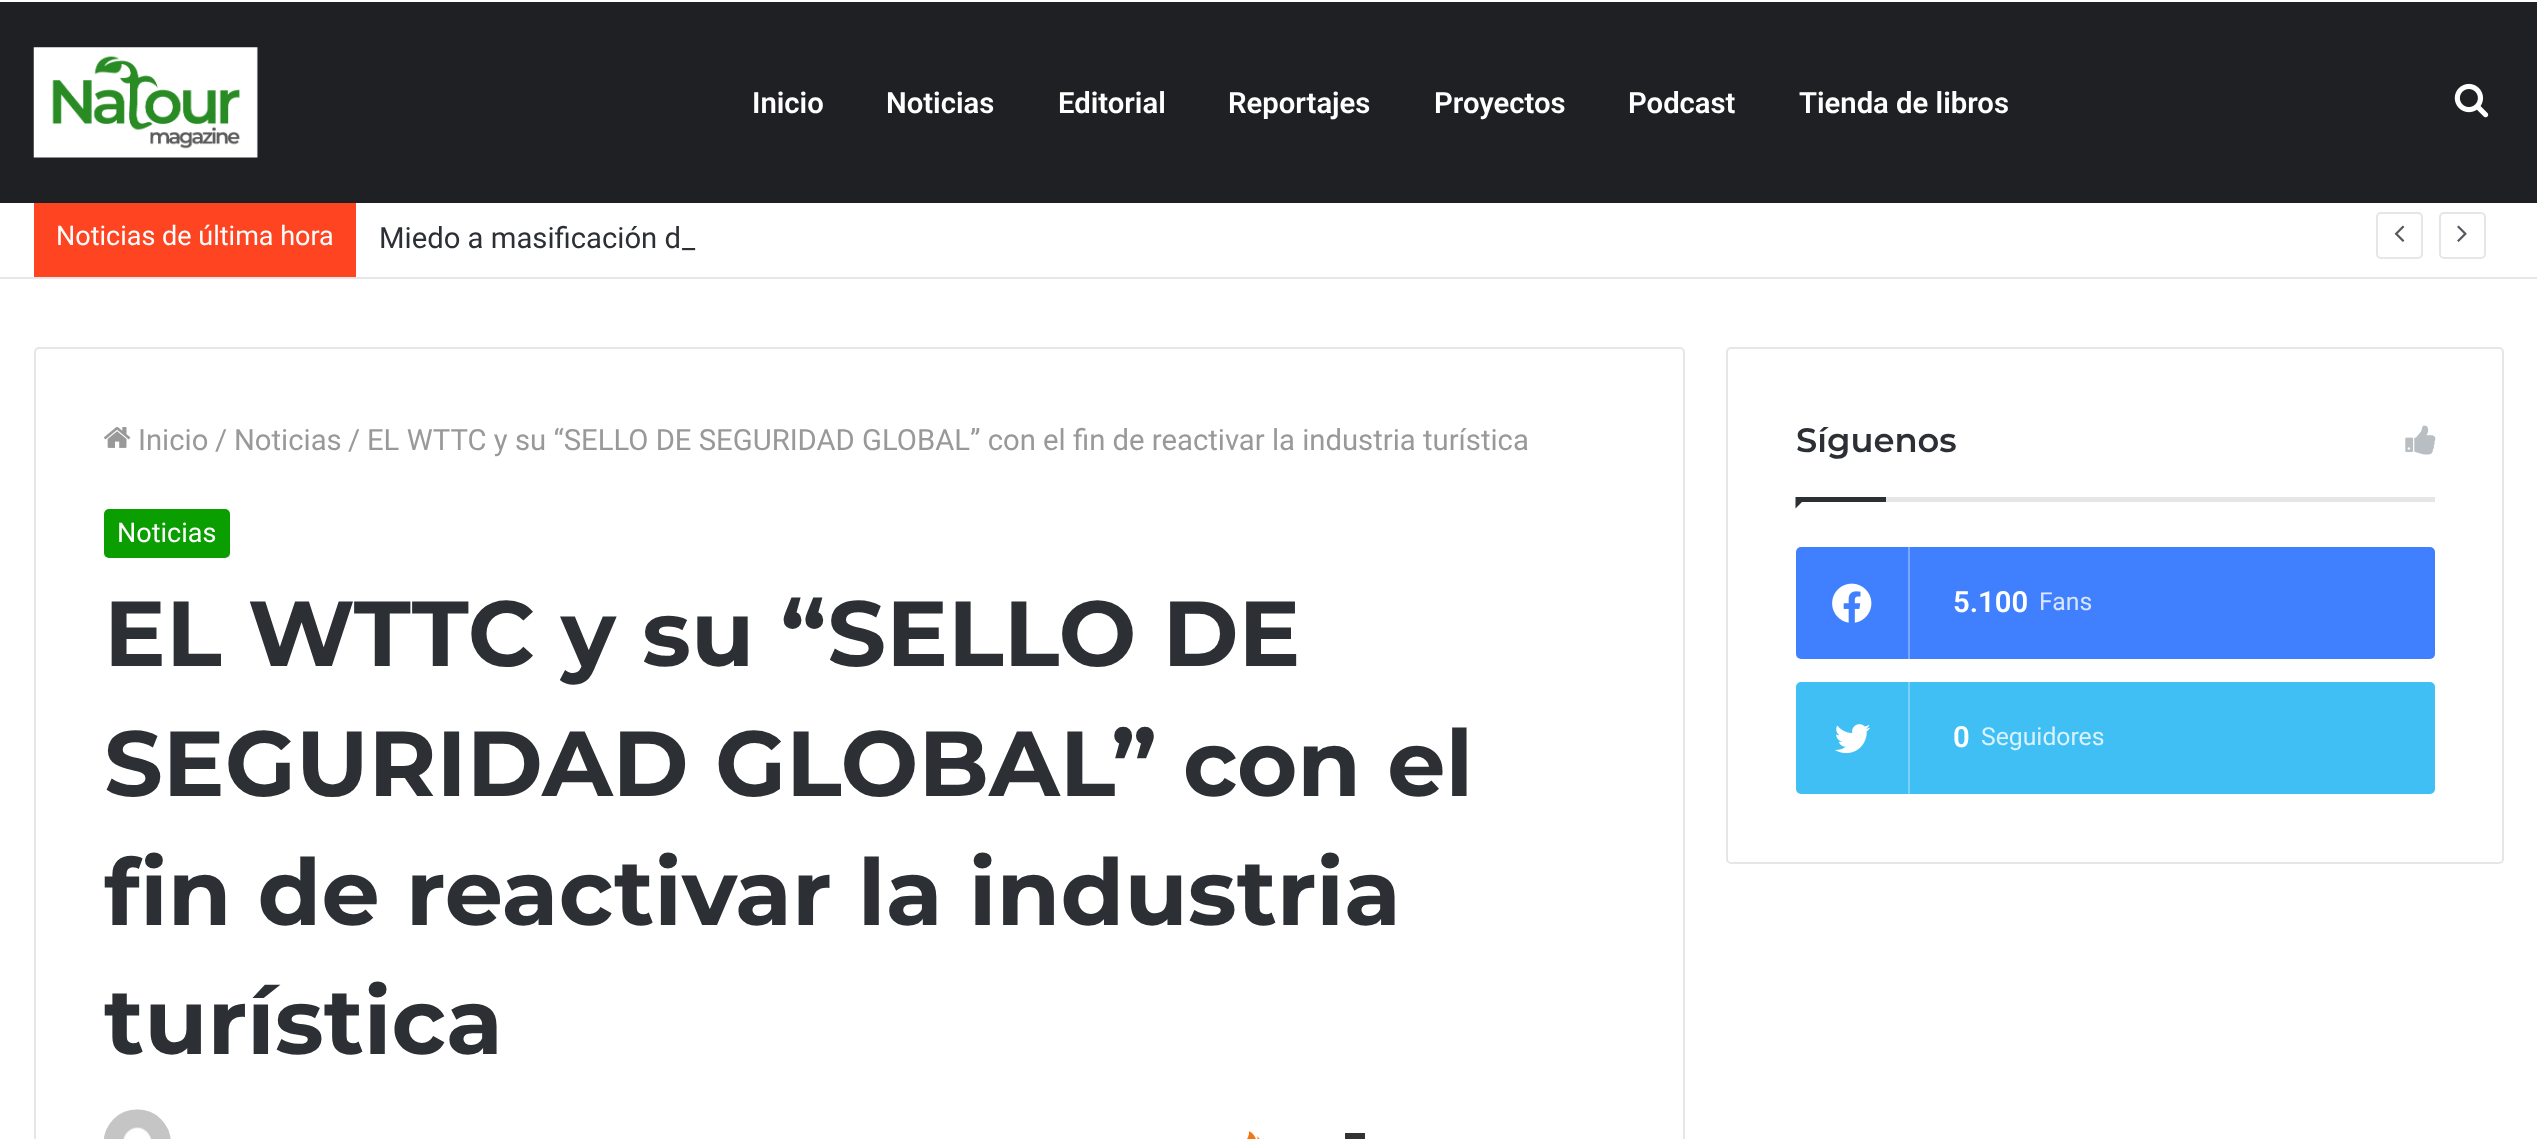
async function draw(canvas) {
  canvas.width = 2537
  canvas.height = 1139
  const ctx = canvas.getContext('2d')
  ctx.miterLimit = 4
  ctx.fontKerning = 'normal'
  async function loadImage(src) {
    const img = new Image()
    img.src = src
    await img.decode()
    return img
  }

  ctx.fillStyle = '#fff'
  ctx.fillRect(0, 0, 2537, 1139)
  ctx.fillStyle = '#1f2024'
  ctx.fillRect(0, 2, 2537, 201)
  ctx.drawImage(await loadImage('image0.png'), 33, 47, 225, 111)
  ctx.font = '600 29.25px Roboto'
  ctx.fillStyle = '#fff'
  ctx.fillText('Inicio', 752, 113)
  ctx.fillText('Noticias', 886, 113)
  ctx.fillText('Editorial', 1058, 113)
  ctx.fillText('Reportajes', 1228, 113)
  ctx.fillText('Proyectos', 1434, 113)
  ctx.fillText('Podcast', 1628, 113)
  ctx.fillText('Tienda de libros', 1799, 113)
  ctx.drawImage(await loadImage('image1.png'), 2454, 83, 35, 35)
  ctx.fillStyle = '#e6e6e6'
  ctx.fillRect(0, 277, 2537, 2)
  ctx.fillStyle = '#f42'
  ctx.fillRect(34, 203, 322, 74)
  ctx.font = '27px Roboto'
  ctx.fillStyle = '#fff'
  ctx.fillText('Noticias de última hora', 56, 245)
  ctx.font = '29.25px Roboto'
  ctx.fillStyle = '#2c2f34'
  ctx.fillText('Miedo a masificación d', 379, 248)
  ctx.fillText('_', 682, 248)
  ctx.beginPath()
  ctx.roundRect(2377, 213, 45, 45, 4)
  ctx.strokeStyle = '#e6e6e6'
  ctx.lineWidth = 2
  ctx.stroke()
  ctx.drawImage(await loadImage('image2.png'), 2394, 225, 11, 17)
  ctx.beginPath()
  ctx.roundRect(2440, 213, 45, 45, 4)
  ctx.stroke()
  ctx.drawImage(await loadImage('image3.png'), 2457, 225, 10, 17)
  ctx.beginPath()
  ctx.roundRect(35, 348, 1649, 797, 4)
  ctx.stroke()
  ctx.drawImage(await loadImage('image4.png'), 104, 427, 27, 21)
  ctx.fillStyle = '#999'
  ctx.fillText('Inicio', 138, 450)
  ctx.fillText('/', 215, 450)
  ctx.fillText('Noticias', 234, 450)
  ctx.fillText('/', 348, 450)
  ctx.fillText('EL WTTC y su “SELLO DE SEGURIDAD GLOBAL” con el fin de reactivar la industria turística', 367, 450)
  ctx.fillStyle = '#0a9e01'
  ctx.beginPath()
  ctx.roundRect(104, 509, 126, 49, 5)
  ctx.fill()
  ctx.font = '27px Roboto'
  ctx.fillStyle = '#fff'
  ctx.fillText('Noticias', 117, 542)
  ctx.font = 'bold 92.25px Montserrat'
  ctx.fillStyle = '#2c2f34'
  ctx.fillText('EL WTTC y su “SELLO DE', 104, 666)
  ctx.fillText('SEGURIDAD GLOBAL” con el', 104, 796)
  ctx.fillText('fin de reactivar la industria', 104, 925)
  ctx.fillText('turística', 104, 1054)
  ctx.drawImage(await loadImage('image5.png'), 104, 1109, 67, 30)
  ctx.drawImage(await loadImage('image6.png'), 1247, 1131, 13, 8)
  ctx.fillStyle = '#333'
  ctx.fillRect(1345, 1133, 20, 6)
  ctx.beginPath()
  ctx.roundRect(1727, 348, 776, 515, 4)
  ctx.stroke()
  ctx.fillStyle = '#e6e6e6'
  ctx.fillRect(1886, 497, 549, 5)
  ctx.font = '600 33.75px Montserrat'
  ctx.fillStyle = '#2c2f34'
  ctx.fillText('Síguenos', 1796, 452)
  ctx.drawImage(await loadImage('image7.png'), 2405, 425, 31, 30)
  ctx.beginPath()
  ctx.moveTo(1795.5, 497)
  ctx.lineTo(1807, 497)
  ctx.lineTo(1795.5, 508.5)
  ctx.closePath()
  ctx.fill()
  ctx.fillRect(1796, 497, 90, 5)
  ctx.fillStyle = '#4080ff'
  ctx.beginPath()
  ctx.roundRect(1796, 547, 639, 112, 5)
  ctx.fill()
  ctx.fillStyle = '#79a6ff'
  ctx.fillRect(1908, 547, 2, 112)
  ctx.drawImage(await loadImage('image8.png'), 1832, 583, 40, 40)
  ctx.font = '600 29.25px Roboto'
  ctx.fillStyle = '#fff'
  ctx.fillText('5.100', 1953, 612)
  ctx.font = '24.75px Roboto'
  ctx.fillStyle = '#d9e6ff'
  ctx.fillText('Fans', 2039, 610)
  ctx.fillStyle = '#40bff5'
  ctx.beginPath()
  ctx.roundRect(1796, 682, 639, 112, 5)
  ctx.fill()
  ctx.fillStyle = '#79d2f8'
  ctx.fillRect(1908, 682, 2, 112)
  ctx.drawImage(await loadImage('image9.png'), 1835, 724, 36, 30)
  ctx.font = '600 29.25px Roboto'
  ctx.fillStyle = '#fff'
  ctx.fillText('0', 1953, 747)
  ctx.font = '24.75px Roboto'
  ctx.fillStyle = '#d9f2fd'
  ctx.fillText('Seguidores', 1981, 745)
}

draw(document.querySelector('canvas'))
